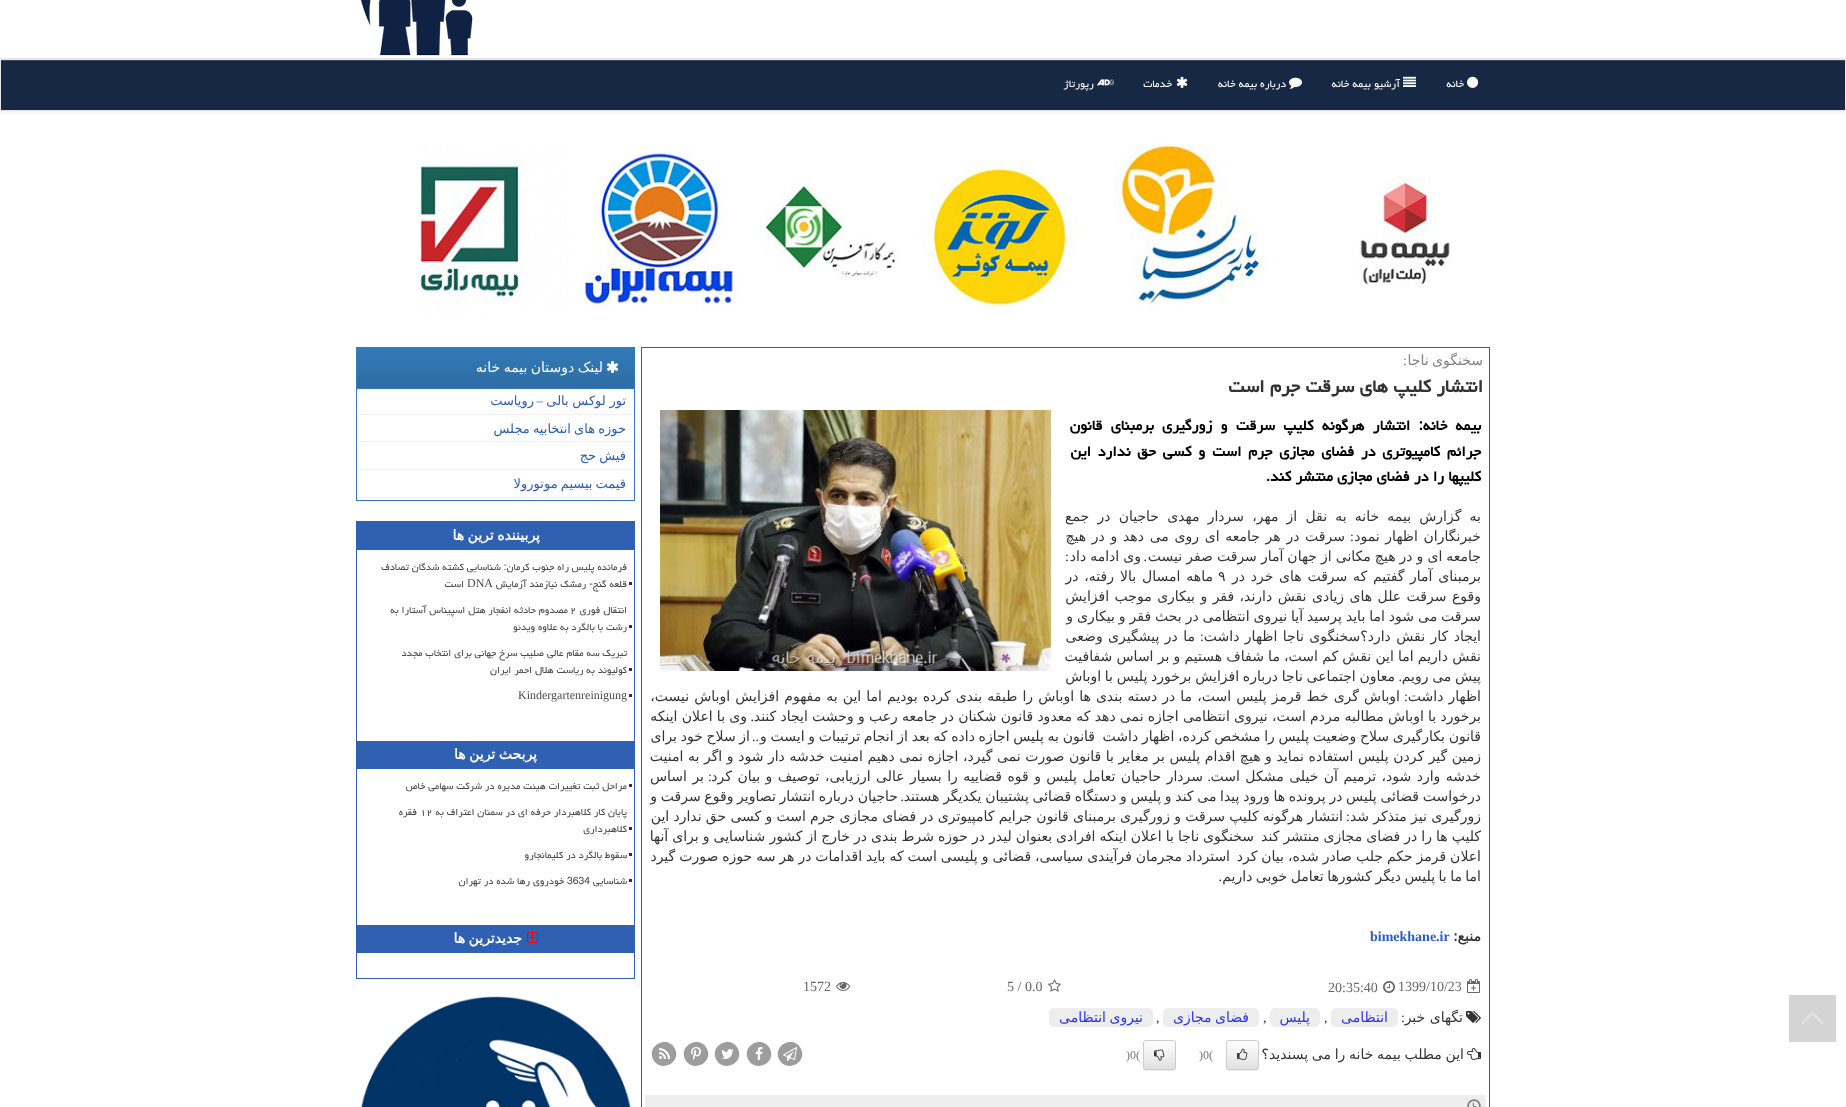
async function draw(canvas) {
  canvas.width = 1846
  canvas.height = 1107
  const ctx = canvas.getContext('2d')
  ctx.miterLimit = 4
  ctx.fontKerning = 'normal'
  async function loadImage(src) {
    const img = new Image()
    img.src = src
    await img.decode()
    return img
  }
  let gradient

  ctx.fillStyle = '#fff'
  ctx.fillRect(0, 0, 1846, 1107)
  ctx.fillStyle = '#eee'
  ctx.fillRect(0, 58, 1846, 1)
  ctx.drawImage(await loadImage('image0.png'), 361, 0, 112, 56)
  ctx.fillStyle = '#00000012'
  ctx.filter = 'blur(2.5px)'
  ctx.beginPath()
  ctx.rect(0, 60, 1846, 52)
  ctx.fill()
  ctx.filter = 'none'
  ctx.fillStyle = '#172844'
  ctx.fillRect(1, 61, 1844, 49)
  ctx.fillStyle = '#3a4860'
  ctx.fillRect(1, 60, 1844, 1)
  ctx.strokeStyle = '#e7e7e7'
  ctx.strokeRect(0.5, 59.5, 1845, 51)
  ctx.drawImage(await loadImage('image1.png'), 1467, 76, 12, 12)
  ctx.direction = 'rtl'
  ctx.font = '13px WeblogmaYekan'
  ctx.fillStyle = '#fff'
  ctx.fillText('خانه', 1464, 87)
  ctx.drawImage(await loadImage('image2.png'), 1403, 76, 13, 11)
  ctx.fillText('آرشیو بیمه خانه', 1400, 87)
  ctx.drawImage(await loadImage('image3.png'), 1289, 77, 13, 12)
  ctx.fillText('درباره بیمه خانه', 1286, 87)
  ctx.drawImage(await loadImage('image4.png'), 1176, 76, 12, 12)
  ctx.fillText('خدمات', 1172, 87)
  ctx.drawImage(await loadImage('image5.png'), 1097, 79, 17, 7)
  ctx.fillText('رپورتاژ', 1094, 87)
  ctx.drawImage(await loadImage('image6.png'), 419, 143, 1034, 171)
  ctx.strokeStyle = '#3060b1'
  ctx.strokeRect(641.5, 347.5, 848, 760)
  ctx.wordSpacing = '-1px'
  ctx.font = '14px DejaVu Sans'
  ctx.fillStyle = '#808080'
  ctx.fillText('سخنگوی ناجا', 1483, 365)
  ctx.wordSpacing = '0px'
  ctx.font = '14px Liberation Serif'
  ctx.fillText(':', 1407, 365)
  ctx.font = 'bold 22.4px WeblogmaYekan'
  ctx.fillStyle = '#333'
  ctx.fillText('انتشار كلیپ های سرقت جرم است', 1483, 392)
  ctx.wordSpacing = '4px'
  ctx.font = 'bold 18px WeblogmaYekan'
  ctx.fillStyle = '#000'
  ctx.fillText('بیمه خانه: انتشار هرگونه کلیپ سرقت و زورگیری برمبنای قانون', 1481, 430)
  ctx.wordSpacing = '2.5px'
  ctx.fillText('جرائم کامپیوتری در فضای مجازی جرم است و کسی حق ندارد این', 1481, 456)
  ctx.wordSpacing = '0px'
  ctx.fillText('کلیپها را در فضای مجازی منتشر کند.', 1481, 481)
  ctx.drawImage(await loadImage('image7.png'), 660, 410, 391, 261)
  ctx.wordSpacing = '3.75px'
  ctx.font = '14px DejaVu Sans'
  ctx.fillStyle = '#333'
  ctx.fillText('به گزارش بیمه خانه به نقل از مهر، سردار مهدی حاجیان در جمع', 1481, 521)
  ctx.wordSpacing = '1.25px'
  ctx.fillText('خبرنگاران اظهار نمود', 1481, 541)
  ctx.wordSpacing = '0px'
  ctx.font = '14px Liberation Serif'
  ctx.fillText(':', 1354, 541)
  ctx.wordSpacing = '1.25px'
  ctx.font = '14px DejaVu Sans'
  ctx.fillText('سرقت در هر جامعه ای روی می دهد و در هیچ', 1345, 541)
  ctx.wordSpacing = '-0.4px'
  ctx.fillText('جامعه ای و در هیچ مکانی از جهان آمار سرقت صفر نیست', 1481, 561)
  ctx.wordSpacing = '0px'
  ctx.font = '14px Liberation Serif'
  ctx.fillText('.', 1147, 561)
  ctx.wordSpacing = '-0.4px'
  ctx.font = '14px DejaVu Sans'
  ctx.fillText('وی ادامه داد', 1141, 561)
  ctx.wordSpacing = '0px'
  ctx.font = '14px Liberation Serif'
  ctx.fillText(':', 1069, 561)
  ctx.wordSpacing = '1.25px'
  ctx.font = '14px DejaVu Sans'
  ctx.fillText('برمبنای آمار گفتیم که سرقت های خرد در', 1481, 581)
  ctx.wordSpacing = '0px'
  ctx.direction = 'ltr'
  ctx.fillText('۹', 1218, 581)
  ctx.wordSpacing = '1.5px'
  ctx.direction = 'rtl'
  ctx.fillText('ماهه امسال بالا رفته، در', 1213, 581)
  ctx.wordSpacing = '1px'
  ctx.fillText('وقوع سرقت علل های زیادی نقش دارند، فقر و بیکاری موجب افزایش', 1481, 601)
  ctx.wordSpacing = '-0.5px'
  ctx.fillText('سرقت می شود اما باید پرسید آیا نیروی انتظامی در بحث فقر و بیکاری و', 1481, 621)
  ctx.wordSpacing = '1px'
  ctx.fillText('ایجاد کار نقش دارد؟سخنگوی ناجا اظهار داشت', 1481, 641)
  ctx.wordSpacing = '0px'
  ctx.font = '14px Liberation Serif'
  ctx.fillText(':', 1204, 641)
  ctx.wordSpacing = '1px'
  ctx.font = '14px DejaVu Sans'
  ctx.fillText('ما در پیشگیری وضعی', 1195, 641)
  ctx.wordSpacing = '-0.25px'
  ctx.fillText('نقش داریم اما این نقش کم است، ما شفاف هستیم و بر اساس شفافیت', 1481, 661)
  ctx.wordSpacing = '-0.75px'
  ctx.fillText('پیش می رویم', 1481, 681)
  ctx.fillText('معاون اجتماعی ناجا درباره افزایش برخورد پلیس با اوباش', 1395, 681)
  ctx.wordSpacing = '0px'
  ctx.font = '14px Liberation Serif'
  ctx.fillText('.', 1402, 681)
  ctx.wordSpacing = '0.65px'
  ctx.font = '14px DejaVu Sans'
  ctx.fillText('اظهار داشت', 1481, 701)
  ctx.wordSpacing = '0px'
  ctx.font = '14px Liberation Serif'
  ctx.fillText(':', 1408, 701)
  ctx.wordSpacing = '0.65px'
  ctx.font = '14px DejaVu Sans'
  ctx.fillText('اوباش گری خط قرمز پلیس است، ما در دسته بندی ها اوباش را طبقه بندی کرده بودیم اما این به مفهوم افزایش اوباش نیست،', 1400, 701)
  ctx.wordSpacing = '-0.2px'
  ctx.fillText('برخورد با اوباش مطالبه مردم است، نیروی انتظامی اجازه نمی دهد که معدود قانون شکنان در جامعه رعب و وحشت ایجاد کنند', 1481, 721)
  ctx.wordSpacing = '0px'
  ctx.font = '14px Liberation Serif'
  ctx.fillText('.', 754, 721)
  ctx.wordSpacing = '-0.2px'
  ctx.font = '14px DejaVu Sans'
  ctx.fillText('وی با اعلان اینکه', 747, 721)
  ctx.wordSpacing = '-0.75px'
  ctx.fillText('قانون بکارگیری سلاح وضعیت پلیس را مشخص کرده، اظهار داشت', 1481, 741)
  ctx.wordSpacing = '0px'
  ctx.font = '14px Liberation Serif'
  ctx.fillText('..', 759, 741)
  ctx.wordSpacing = '-0.75px'
  ctx.font = '14px DejaVu Sans'
  ctx.fillText('قانون به پلیس اجازه داده که بعد از انجام ترتیبات و ایست و', 1095, 741)
  ctx.fillText('از سلاح خود برای', 750, 741)
  ctx.wordSpacing = '0.15px'
  ctx.fillText('زمین گیر کردن پلیس استفاده نماید و هیچ اقدام پلیس بر مغایر با قانون صورت نمی گیرد، اجازه نمی دهیم امنیت خدشه دار شود و اگر به امنیت', 1481, 761)
  ctx.wordSpacing = '1px'
  ctx.fillText('خدشه وارد شود، ترمیم آن خیلی مشکل است', 1481, 781)
  ctx.wordSpacing = '0px'
  ctx.font = '14px Liberation Serif'
  ctx.fillText('.', 1211, 781)
  ctx.wordSpacing = '1px'
  ctx.font = '14px DejaVu Sans'
  ctx.fillText('سردار حاجیان تعامل پلیس و قوه قضاییه را بسیار عالی ارزیابی، توصیف و بیان کرد', 1203, 781)
  ctx.wordSpacing = '0px'
  ctx.font = '14px Liberation Serif'
  ctx.fillText(':', 712, 781)
  ctx.wordSpacing = '1px'
  ctx.font = '14px DejaVu Sans'
  ctx.fillText('بر اساس', 704, 781)
  ctx.wordSpacing = '-0.75px'
  ctx.fillText('درخواست قضائی پلیس در پرونده ها ورود پیدا می کند و پلیس و دستگاه قضائی پشتیبان یکدیگر هستند', 1481, 801)
  ctx.fillText('حاجیان درباره انتشار تصاویر وقوع سرقت و', 898, 801)
  ctx.wordSpacing = '0px'
  ctx.font = '14px Liberation Serif'
  ctx.fillText('.', 904, 801)
  ctx.wordSpacing = '-0.2px'
  ctx.font = '14px DejaVu Sans'
  ctx.fillText('زورگیری نیز متذکر شد', 1481, 821)
  ctx.wordSpacing = '0px'
  ctx.font = '14px Liberation Serif'
  ctx.fillText(':', 1350, 821)
  ctx.wordSpacing = '-0.2px'
  ctx.font = '14px DejaVu Sans'
  ctx.fillText('انتشار هرگونه کلیپ سرقت و زورگیری برمبنای قانون جرایم کامپیوتری در فضای مجازی جرم است و کسی حق ندارد این', 1343, 821)
  ctx.wordSpacing = '-0.4px'
  ctx.fillText('کلیپ ها را در فضای مجازی منتشر کند', 1481, 841)
  ctx.fillText('سخنگوی ناجا با اعلان اینکه افرادی بعنوان لیدر در حوزه شرط بندی در خارج از کشور شناسایی و برای آنها', 1254, 841)
  ctx.wordSpacing = '-0.5px'
  ctx.fillText('اعلان قرمز حکم جلب صادر شده، بیان کرد', 1481, 861)
  ctx.fillText('استرداد مجرمان فرآیندی سیاسی، قضائی و پلیسی است که باید اقدامات در هر سه حوزه صورت گیرد', 1230, 861)
  ctx.wordSpacing = '-1px'
  ctx.fillText('اما ما با پلیس دیگر کشورها تعامل خوبی داریم', 1481, 881)
  ctx.wordSpacing = '0px'
  ctx.font = '14px Liberation Serif'
  ctx.fillText('.', 1222, 881)
  ctx.font = 'bold 14px DejaVu Sans'
  ctx.fillText('منبع:', 1481, 941)
  ctx.direction = 'ltr'
  ctx.font = 'bold 14px Liberation Serif'
  ctx.fillStyle = '#2c5db6'
  ctx.fillText('bimekhane.ir', 1370, 941)
  ctx.drawImage(await loadImage('image8.png'), 1467, 979, 13, 14)
  ctx.font = '14px Liberation Serif'
  ctx.fillStyle = '#666'
  ctx.fillText('1399/10/23', 1398, 991)
  ctx.drawImage(await loadImage('image9.png'), 1383, 981, 12, 12)
  ctx.fillText('20:35:40', 1328, 992)
  ctx.drawImage(await loadImage('image10.png'), 1048, 979, 13, 13)
  ctx.fillText('0.0', 1025, 991)
  ctx.fillText('5 /', 1007, 991)
  ctx.drawImage(await loadImage('image11.png'), 836, 982, 14, 9)
  ctx.fillText('1572', 803, 991)
  ctx.drawImage(await loadImage('image12.png'), 1466, 1011, 15, 12)
  ctx.direction = 'rtl'
  ctx.font = '14px DejaVu Sans'
  ctx.fillStyle = '#333'
  ctx.fillText('تگهای خبر', 1463, 1022)
  ctx.font = '14px Liberation Serif'
  ctx.fillText(':', 1405, 1022)
  ctx.fillStyle = '#ededed'
  ctx.beginPath()
  ctx.roundRect(1331, 1008, 67, 19, 5)
  ctx.fill()
  ctx.font = '14px DejaVu Sans'
  ctx.fillStyle = '#2b34e1'
  ctx.fillText('انتظامی', 1388, 1022)
  ctx.direction = 'ltr'
  ctx.font = '14px Liberation Serif'
  ctx.fillStyle = '#333'
  ctx.fillText(',', 1324, 1022)
  ctx.fillStyle = '#ededed'
  ctx.beginPath()
  ctx.roundRect(1270, 1008, 50, 19, 5)
  ctx.fill()
  ctx.direction = 'rtl'
  ctx.font = '14px DejaVu Sans'
  ctx.fillStyle = '#2b34e1'
  ctx.fillText('پلیس', 1310, 1022)
  ctx.direction = 'ltr'
  ctx.font = '14px Liberation Serif'
  ctx.fillStyle = '#333'
  ctx.fillText(',', 1263, 1022)
  ctx.fillStyle = '#ededed'
  ctx.beginPath()
  ctx.roundRect(1163, 1008, 96, 19, 5)
  ctx.fill()
  ctx.wordSpacing = '-1px'
  ctx.direction = 'rtl'
  ctx.font = '14px DejaVu Sans'
  ctx.fillStyle = '#2b34e1'
  ctx.fillText('فضای مجازی', 1249, 1022)
  ctx.wordSpacing = '0px'
  ctx.direction = 'ltr'
  ctx.font = '14px Liberation Serif'
  ctx.fillStyle = '#333'
  ctx.fillText(',', 1156, 1022)
  ctx.fillStyle = '#ededed'
  ctx.beginPath()
  ctx.roundRect(1049, 1008, 104, 19, 5)
  ctx.fill()
  ctx.wordSpacing = '-1px'
  ctx.direction = 'rtl'
  ctx.font = '14px DejaVu Sans'
  ctx.fillStyle = '#2b34e1'
  ctx.fillText('نیروی انتظامی', 1143, 1022)
  ctx.drawImage(await loadImage('image13.png'), 1467, 1048, 14, 12)
  ctx.wordSpacing = '-0.75px'
  ctx.fillStyle = '#333'
  ctx.fillText('این مطلب بیمه خانه را می پسندید؟', 1464, 1059)
  ctx.fillStyle = '#00000012'
  ctx.filter = 'blur(0.5px)'
  ctx.beginPath()
  ctx.roundRect(1226, 1041, 33, 30, 3)
  ctx.fill()
  ctx.filter = 'none'
  ctx.save()
  ctx.beginPath()
  ctx.roundRect(1226, 1040, 33, 30, 3)
  ctx.clip()
  gradient = ctx.createLinearGradient(1243, 1041, 1243, 1069)
  gradient.addColorStop(0, '#fff')
  gradient.addColorStop(1, '#e0e0e0')
  ctx.fillStyle = gradient
  ctx.fillRect(1226, 1041, 33, 28)
  ctx.restore()
  ctx.beginPath()
  ctx.roundRect(1226.5, 1040.5, 32, 29, 2.5)
  ctx.strokeStyle = '#ccc'
  ctx.stroke()
  ctx.drawImage(await loadImage('image14.png'), 1237, 1048, 11, 12)
  ctx.wordSpacing = '0px'
  ctx.direction = 'ltr'
  ctx.font = '12px Liberation Serif'
  ctx.fillStyle = '#777'
  ctx.fillText(')0(', 1199, 1059)
  ctx.fillStyle = '#00000012'
  ctx.filter = 'blur(0.5px)'
  ctx.beginPath()
  ctx.roundRect(1143, 1041, 33, 30, 3)
  ctx.fill()
  ctx.filter = 'none'
  ctx.save()
  ctx.beginPath()
  ctx.roundRect(1143, 1040, 33, 30, 3)
  ctx.clip()
  gradient = ctx.createLinearGradient(1160, 1041, 1160, 1069)
  gradient.addColorStop(0, '#fff')
  gradient.addColorStop(1, '#e0e0e0')
  ctx.fillStyle = gradient
  ctx.fillRect(1143, 1041, 33, 28)
  ctx.restore()
  ctx.beginPath()
  ctx.roundRect(1143.5, 1040.5, 32, 29, 2.5)
  ctx.stroke()
  ctx.drawImage(await loadImage('image15.png'), 1154, 1049, 11, 12)
  ctx.fillStyle = '#777'
  ctx.fillText(')0(', 1126, 1059)
  ctx.fillStyle = '#9d9d9d'
  ctx.beginPath()
  ctx.moveTo(800.5, 1048)
  ctx.bezierCurveTo(808.5, 1061.5, 787.5, 1073.5, 779.5, 1060)
  ctx.bezierCurveTo(771.5, 1046.5, 792.5, 1034.5, 800.5, 1048)
  ctx.closePath()
  ctx.fill()
  ctx.drawImage(await loadImage('image16.png'), 783, 1047, 14, 14)
  ctx.beginPath()
  ctx.moveTo(769.5, 1048)
  ctx.bezierCurveTo(777.5, 1061.5, 756.5, 1073.5, 748.5, 1060)
  ctx.bezierCurveTo(740.5, 1046.5, 761.5, 1034.5, 769.5, 1048)
  ctx.closePath()
  ctx.fill()
  ctx.drawImage(await loadImage('image17.png'), 755, 1047, 8, 13)
  ctx.beginPath()
  ctx.moveTo(737.5, 1048)
  ctx.bezierCurveTo(745.5, 1061.5, 724.5, 1073.5, 716.5, 1060)
  ctx.bezierCurveTo(708.5, 1046.5, 729.5, 1034.5, 737.5, 1048)
  ctx.closePath()
  ctx.fill()
  ctx.drawImage(await loadImage('image18.png'), 721, 1049, 13, 10)
  ctx.beginPath()
  ctx.moveTo(706.5, 1048)
  ctx.bezierCurveTo(714.5, 1061.5, 693.5, 1073.5, 685.5, 1060)
  ctx.bezierCurveTo(677.5, 1046.5, 698.5, 1034.5, 706.5, 1048)
  ctx.closePath()
  ctx.fill()
  ctx.drawImage(await loadImage('image19.png'), 691, 1047, 10, 13)
  ctx.beginPath()
  ctx.moveTo(674.5, 1048)
  ctx.bezierCurveTo(682.5, 1061.5, 661.5, 1073.5, 653.5, 1060)
  ctx.bezierCurveTo(645.5, 1046.5, 666.5, 1034.5, 674.5, 1048)
  ctx.closePath()
  ctx.fill()
  ctx.drawImage(await loadImage('image20.png'), 659, 1048, 11, 11)
  ctx.fillStyle = '#eee'
  ctx.fillRect(645, 1095, 841, 12)
  ctx.drawImage(await loadImage('image21.png'), 1467, 1099, 14, 8)
  ctx.strokeStyle = '#337ab7'
  ctx.strokeRect(356.5, 347.5, 278, 153)
  ctx.fillStyle = '#337ab7'
  ctx.fillRect(357, 388, 277, 1)
  gradient = ctx.createLinearGradient(496, 348, 496, 388)
  gradient.addColorStop(0, '#337ab7')
  gradient.addColorStop(1, '#2e6da4')
  ctx.fillStyle = gradient
  ctx.fillRect(357, 348, 277, 40)
  ctx.drawImage(await loadImage('image22.png'), 606, 361, 12, 12)
  ctx.wordSpacing = '-1px'
  ctx.direction = 'rtl'
  ctx.font = '14px DejaVu Sans'
  ctx.fillStyle = '#fff'
  ctx.fillText('لینک دوستان بیمه خانه', 603, 372)
  ctx.fillStyle = '#f1f1f1'
  ctx.fillRect(357, 414, 277, 1)
  ctx.wordSpacing = '-0.5px'
  ctx.font = '13px DejaVu Sans'
  ctx.fillStyle = '#2c5db6'
  ctx.fillText('تور لوکس بالی', 626, 405)
  ctx.wordSpacing = '0px'
  ctx.font = '13px Liberation Serif'
  ctx.fillText('–', 543, 405)
  ctx.font = '13px DejaVu Sans'
  ctx.fillText('رویاست', 534, 405)
  ctx.fillStyle = '#f1f1f1'
  ctx.fillRect(357, 441, 277, 1)
  ctx.wordSpacing = '-1px'
  ctx.fillStyle = '#2c5db6'
  ctx.fillText('حوزه های انتخابیه مجلس', 626, 433)
  ctx.fillStyle = '#f1f1f1'
  ctx.fillRect(357, 469, 277, 1)
  ctx.fillStyle = '#2c5db6'
  ctx.fillText('فیش حج', 626, 460)
  ctx.fillStyle = '#f1f1f1'
  ctx.fillRect(357, 497, 277, 1)
  ctx.fillStyle = '#2c5db6'
  ctx.fillText('قیمت بیسیم موتورولا', 626, 488)
  ctx.strokeStyle = '#3060b1'
  ctx.strokeRect(356.5, 521.5, 278, 457)
  ctx.fillStyle = '#3060b1'
  ctx.fillRect(357, 522, 277, 28)
  ctx.font = 'bold 14px DejaVu Sans'
  ctx.fillStyle = '#fff'
  ctx.fillText('پربیننده ترین ها', 540, 540)
  ctx.fillStyle = '#333'
  ctx.fillRect(629, 582, 3, 3)
  ctx.wordSpacing = '0px'
  ctx.font = '12px WeblogmaYekan'
  ctx.fillStyle = '#4a4a4a'
  ctx.fillText('فرمانده پلیس راه جنوب کرمان: شناسایی کشته شدگان تصادف', 627, 570)
  ctx.fillText('قلعه گنج- رمشک نیازمند آزمایش', 627, 587)
  ctx.direction = 'ltr'
  ctx.font = '12px Liberation Serif'
  ctx.fillText('DNA', 467, 587)
  ctx.direction = 'rtl'
  ctx.font = '12px WeblogmaYekan'
  ctx.fillText('است', 464, 587)
  ctx.fillStyle = '#333'
  ctx.fillRect(629, 625, 3, 3)
  ctx.fillStyle = '#4a4a4a'
  ctx.fillText('انتقال فوری', 627, 613)
  ctx.direction = 'ltr'
  ctx.fillText('۲', 570, 613)
  ctx.direction = 'rtl'
  ctx.fillText('مصدوم حادثه انفجار هتل اسپیناس آستارا به', 568, 613)
  ctx.fillText('رشت با بالگرد به علاوه ویدئو', 627, 630)
  ctx.fillStyle = '#333'
  ctx.fillRect(629, 668, 3, 3)
  ctx.fillStyle = '#4a4a4a'
  ctx.fillText('تبریک سه مقام عالی صلیب سرخ جهانی برای انتخاب مجدد', 627, 656)
  ctx.fillText('کولیوند به ریاست هلال احمر ایران', 627, 673)
  ctx.fillStyle = '#333'
  ctx.fillRect(629, 694, 3, 3)
  ctx.direction = 'ltr'
  ctx.font = '12px Liberation Serif'
  ctx.fillStyle = '#4a4a4a'
  ctx.fillText('Kindergartenreinigung', 518, 699)
  ctx.fillStyle = '#3060b1'
  ctx.fillRect(357, 741, 277, 28)
  ctx.wordSpacing = '-1px'
  ctx.direction = 'rtl'
  ctx.font = 'bold 14px DejaVu Sans'
  ctx.fillStyle = '#fff'
  ctx.fillText('پربحث ترین ها', 537, 759)
  ctx.fillStyle = '#333'
  ctx.fillRect(629, 784, 3, 3)
  ctx.wordSpacing = '0px'
  ctx.font = '12px WeblogmaYekan'
  ctx.fillStyle = '#4a4a4a'
  ctx.fillText('مراحل ثبت تغییرات هیئت مدیره در شرکت سهامی خاص', 627, 789)
  ctx.fillStyle = '#333'
  ctx.fillRect(629, 827, 3, 3)
  ctx.fillStyle = '#4a4a4a'
  ctx.fillText('پایان کار کلاهبردار حرفه ای در سمنان اعتراف به', 627, 815)
  ctx.direction = 'ltr'
  ctx.fillText('۱۲', 420, 815)
  ctx.direction = 'rtl'
  ctx.fillText('فقره', 417, 815)
  ctx.fillText('کلاهبرداری', 627, 832)
  ctx.fillStyle = '#333'
  ctx.fillRect(629, 853, 3, 3)
  ctx.fillStyle = '#4a4a4a'
  ctx.fillText('سقوط بالگرد در کلیمانجارو', 627, 858)
  ctx.fillStyle = '#333'
  ctx.fillRect(629, 879, 3, 3)
  ctx.fillStyle = '#4a4a4a'
  ctx.fillText('شناسایی', 627, 884)
  ctx.direction = 'ltr'
  ctx.fillText('3634', 567, 884)
  ctx.direction = 'rtl'
  ctx.fillText('خودروی رها شده در تهران', 564, 884)
  ctx.fillStyle = '#3060b1'
  ctx.fillRect(357, 925, 277, 28)
  ctx.drawImage(await loadImage('image23.png'), 527, 932, 11, 11)
  ctx.wordSpacing = '-1px'
  ctx.font = 'bold 14px DejaVu Sans'
  ctx.fillStyle = '#fff'
  ctx.fillText('جدیدترین ها', 522, 943)
  ctx.drawImage(await loadImage('image24.png'), 361, 996, 270, 111)
  ctx.fillStyle = '#d4d4d4'
  ctx.fillRect(1789, 995, 47, 47)
  ctx.drawImage(await loadImage('image25.png'), 1801, 1011, 23, 14)
}

draw(document.querySelector('canvas'))
